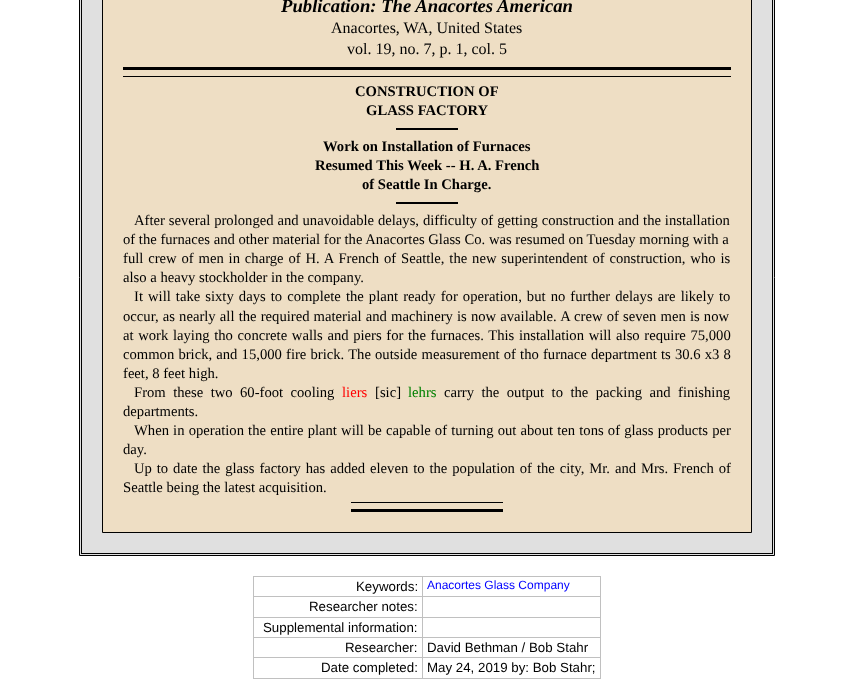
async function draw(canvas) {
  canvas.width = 854
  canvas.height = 682
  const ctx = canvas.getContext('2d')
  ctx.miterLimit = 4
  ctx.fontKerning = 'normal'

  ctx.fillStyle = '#fff'
  ctx.fillRect(0, 0, 854, 682)
  ctx.fillStyle = '#e0e0e0'
  ctx.beginPath()
  ctx.rect(79.5, -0.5, 695, 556)
  ctx.fill()
  ctx.strokeStyle = '#000'
  ctx.stroke()
  ctx.strokeRect(81.5, -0.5, 691, 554)
  ctx.fillStyle = '#eedec4'
  ctx.beginPath()
  ctx.rect(102.5, -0.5, 649, 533)
  ctx.fill()
  ctx.stroke()
  ctx.font = 'italic bold 18.7px Liberation Serif'
  ctx.fillStyle = '#000'
  ctx.fillText('Publication: The Anacortes American', 281, 12)
  ctx.font = '16px Liberation Serif'
  ctx.fillText('Anacortes, WA, United States', 331, 33)
  ctx.fillText('vol. 19, no. 7, p. 1, col. 5', 347, 54)
  ctx.fillRect(123, 67, 608, 3)
  ctx.fillRect(123, 76, 608, 1)
  ctx.font = 'bold 14.65px Liberation Serif'
  ctx.fillText('CONSTRUCTION OF', 355, 96)
  ctx.fillText('GLASS FACTORY', 366, 115)
  ctx.fillRect(396, 128, 62, 2)
  ctx.fillText('Work on Installation of Furnaces', 323, 151)
  ctx.fillText('Resumed This Week -- H. A. French', 315, 170)
  ctx.fillText('of Seattle In Charge.', 362, 189)
  ctx.fillRect(396, 202, 62, 2)
  ctx.wordSpacing = '0.25px'
  ctx.font = '14.65px Liberation Serif'
  ctx.fillText('After several prolonged and unavoidable delays, difficulty of getting construction and the installation', 134, 225)
  ctx.wordSpacing = '0px'
  ctx.fillText('of the furnaces and other material for the Anacortes Glass Co. was resumed on Tuesday morning with a', 123, 244)
  ctx.wordSpacing = '1.2px'
  ctx.fillText('full crew of men in charge of H. A French of Seattle, the new superintendent of construction, who is', 123, 263)
  ctx.wordSpacing = '0px'
  ctx.fillText('also a heavy stockholder in the company.', 123, 282)
  ctx.wordSpacing = '1.4px'
  ctx.fillText('It will take sixty days to complete the plant ready for operation, but no further delays are likely to', 134, 301)
  ctx.wordSpacing = '0.5px'
  ctx.fillText('occur, as nearly all the required material and machinery is now available. A crew of seven men is now', 123, 321)
  ctx.wordSpacing = '1px'
  ctx.fillText('at work laying tho concrete walls and piers for the furnaces. This installation will also require 75,000', 123, 340)
  ctx.wordSpacing = '0.5px'
  ctx.fillText('common brick, and 15,000 fire brick. The outside measurement of tho furnace department ts 30.6 x3 8', 123, 359)
  ctx.wordSpacing = '0px'
  ctx.fillText('feet, 8 feet high.', 123, 378)
  ctx.wordSpacing = '3.75px'
  ctx.fillText('From these two 60-foot cooling', 134, 397)
  ctx.wordSpacing = '0px'
  ctx.fillStyle = '#f00'
  ctx.fillText('liers', 342, 397)
  ctx.fillStyle = '#000'
  ctx.fillText('[sic]', 375, 397)
  ctx.fillStyle = '#008000'
  ctx.fillText('lehrs', 408, 397)
  ctx.wordSpacing = '3.75px'
  ctx.fillStyle = '#000'
  ctx.fillText('carry the output to the packing and finishing', 444, 397)
  ctx.wordSpacing = '0px'
  ctx.fillText('departments.', 123, 416)
  ctx.wordSpacing = '0.5px'
  ctx.fillText('When in operation the entire plant will be capable of turning out about ten tons of glass products per', 134, 435)
  ctx.wordSpacing = '0px'
  ctx.fillText('day.', 123, 454)
  ctx.wordSpacing = '1.25px'
  ctx.fillText('Up to date the glass factory has added eleven to the population of the city, Mr. and Mrs. French of', 134, 473)
  ctx.wordSpacing = '0px'
  ctx.fillText('Seattle being the latest acquisition.', 123, 492)
  ctx.fillRect(351, 502, 152, 1)
  ctx.fillRect(351, 509, 152, 3)
  ctx.fillStyle = '#c0c0c0'
  ctx.fillRect(422, 576, 179, 1)
  ctx.fillRect(422, 596, 179, 1)
  ctx.fillRect(422, 617, 179, 1)
  ctx.fillRect(422, 637, 179, 1)
  ctx.fillRect(422, 657, 179, 1)
  ctx.fillRect(600, 657, 1, 22)
  ctx.fillRect(422, 678, 179, 1)
  ctx.fillRect(422, 657, 1, 22)
  ctx.fillRect(253, 657, 170, 1)
  ctx.fillRect(422, 637, 1, 21)
  ctx.fillRect(253, 637, 170, 1)
  ctx.fillRect(422, 617, 1, 21)
  ctx.fillRect(253, 617, 170, 1)
  ctx.fillRect(422, 596, 1, 22)
  ctx.fillRect(253, 596, 170, 1)
  ctx.fillRect(422, 576, 1, 21)
  ctx.fillRect(253, 576, 170, 1)
  ctx.fillRect(253, 678, 170, 1)
  ctx.fillRect(253, 657, 1, 22)
  ctx.fillRect(253, 637, 1, 21)
  ctx.fillRect(253, 617, 1, 21)
  ctx.fillRect(253, 596, 1, 22)
  ctx.fillRect(253, 576, 1, 21)
  ctx.font = '13.3px Liberation Sans'
  ctx.fillStyle = '#000'
  ctx.fillText('Keywords:', 356, 591)
  ctx.fillStyle = '#c0c0c0'
  ctx.fillRect(600, 637, 1, 21)
  ctx.fillRect(600, 617, 1, 21)
  ctx.fillRect(600, 596, 1, 22)
  ctx.fillRect(600, 576, 1, 21)
  ctx.font = '12px Liberation Sans'
  ctx.fillStyle = '#00f'
  ctx.fillText('Anacortes Glass Company', 427, 589)
  ctx.font = '13.3px Liberation Sans'
  ctx.fillStyle = '#000'
  ctx.fillText('Researcher notes:', 309, 611)
  ctx.fillText('Supplemental information:', 263, 632)
  ctx.fillText('Researcher:', 345, 652)
  ctx.fillText('David Bethman / Bob Stahr', 427, 652)
  ctx.fillText('Date completed:', 321, 672)
  ctx.fillText('May 24, 2019 by: Bob Stahr;', 427, 672)
}

draw(document.querySelector('canvas'))
